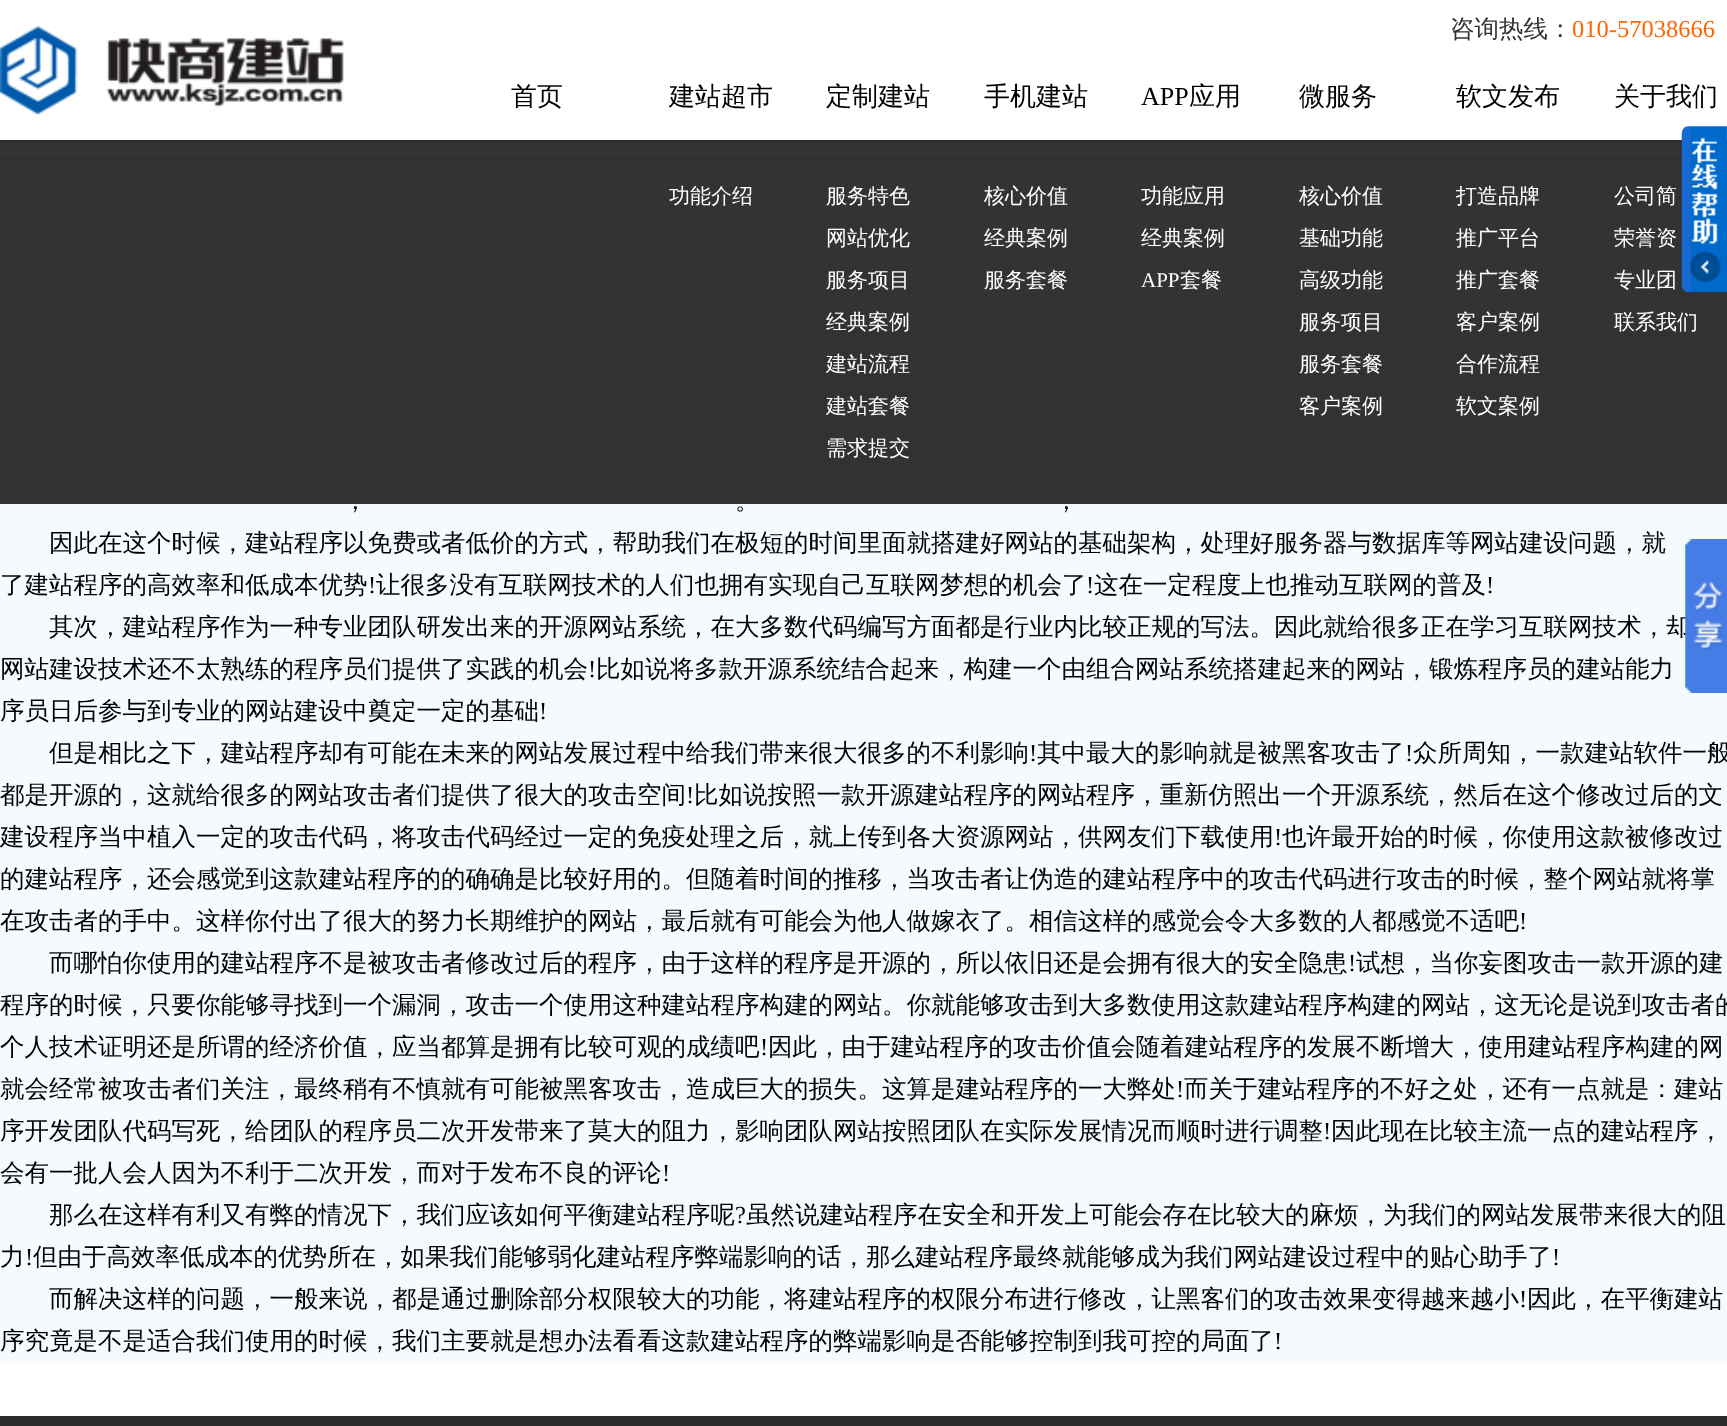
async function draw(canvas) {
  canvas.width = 1727
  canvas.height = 1426
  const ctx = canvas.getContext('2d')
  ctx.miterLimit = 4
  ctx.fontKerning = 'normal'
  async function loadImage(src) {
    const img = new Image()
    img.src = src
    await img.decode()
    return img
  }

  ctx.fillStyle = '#fff'
  ctx.fillRect(0, 0, 1727, 1426)
  ctx.fillStyle = '#ddd'
  ctx.fillRect(0, 140, 1727, 2)
  ctx.drawImage(await loadImage('image0.png'), 0, 25, 344, 90)
  ctx.font = '500 24.5px WenQuanYi Zen Hei'
  ctx.fillStyle = '#333'
  ctx.fillText('咨询热线：', 1450, 37)
  ctx.font = '24.5px Liberation Serif'
  ctx.fillStyle = '#f60'
  ctx.fillText('010-57038666', 1572, 37)
  ctx.font = '500 26px WenQuanYi Zen Hei'
  ctx.fillStyle = '#000'
  ctx.fillText('首页', 511, 105)
  ctx.fillText('建站超市', 669, 105)
  ctx.fillText('定制建站', 826, 105)
  ctx.fillText('手机建站', 984, 105)
  ctx.font = '26px Liberation Serif'
  ctx.fillText('APP', 1141, 105)
  ctx.font = '500 26px WenQuanYi Zen Hei'
  ctx.fillText('应用', 1189, 105)
  ctx.fillText('微服务', 1299, 105)
  ctx.fillText('软文发布', 1456, 105)
  ctx.fillText('关于我们', 1614, 105)
  ctx.fillStyle = '#eee'
  ctx.fillRect(0, 158, 1727, 2)
  ctx.fillStyle = '#f5faff'
  ctx.fillRect(0, 313, 1727, 1050)
  ctx.fillStyle = '#000000cc'
  ctx.fillRect(0, 140, 1727, 364)
  ctx.font = '500 21px WenQuanYi Zen Hei'
  ctx.fillStyle = '#fff'
  ctx.fillText('功能介绍', 669, 203)
  ctx.fillText('服务特色', 826, 203)
  ctx.fillText('网站优化', 826, 245)
  ctx.fillText('服务项目', 826, 287)
  ctx.fillText('经典案例', 826, 329)
  ctx.fillText('建站流程', 826, 371)
  ctx.fillText('建站套餐', 826, 413)
  ctx.fillText('需求提交', 826, 455)
  ctx.fillText('核心价值', 984, 203)
  ctx.fillText('经典案例', 984, 245)
  ctx.fillText('服务套餐', 984, 287)
  ctx.fillText('功能应用', 1141, 203)
  ctx.fillText('经典案例', 1141, 245)
  ctx.font = '21px Liberation Serif'
  ctx.fillText('APP', 1141, 287)
  ctx.font = '500 21px WenQuanYi Zen Hei'
  ctx.fillText('套餐', 1180, 287)
  ctx.fillText('核心价值', 1299, 203)
  ctx.fillText('基础功能', 1299, 245)
  ctx.fillText('高级功能', 1299, 287)
  ctx.fillText('服务项目', 1299, 329)
  ctx.fillText('服务套餐', 1299, 371)
  ctx.fillText('客户案例', 1299, 413)
  ctx.fillText('打造品牌', 1456, 203)
  ctx.fillText('推广平台', 1456, 245)
  ctx.fillText('推广套餐', 1456, 287)
  ctx.fillText('客户案例', 1456, 329)
  ctx.fillText('合作流程', 1456, 371)
  ctx.fillText('软文案例', 1456, 413)
  ctx.fillText('公司简', 1614, 203)
  ctx.fillText('荣誉资', 1614, 245)
  ctx.fillText('专业团', 1614, 287)
  ctx.fillText('联系我们', 1614, 329)
  ctx.drawImage(await loadImage('image1.png'), 1681, 126, 46, 167)
  ctx.font = '500 24.5px WenQuanYi Zen Hei'
  ctx.fillStyle = '#000'
  ctx.fillText('，', 343, 509)
  ctx.fillText('。', 735, 509)
  ctx.fillText('，', 1054, 509)
  ctx.fillText('因此在这个时候，建站程序以免费或者低价的方式，帮助我们在极短的时间里面就搭建好网站的基础架构，处理好服务器与数据库等网站建设问题，就', 49, 551)
  ctx.fillText('了建站程序的高效率和低成本优势', 0, 593)
  ctx.font = '24.5px Liberation Serif'
  ctx.fillText('!', 368, 593)
  ctx.font = '500 24.5px WenQuanYi Zen Hei'
  ctx.fillText('让很多没有互联网技术的人们也拥有实现自己互联网梦想的机会了', 376, 593)
  ctx.font = '24.5px Liberation Serif'
  ctx.fillText('!', 1086, 593)
  ctx.font = '500 24.5px WenQuanYi Zen Hei'
  ctx.fillText('这在一定程度上也推动互联网的普及', 1094, 593)
  ctx.font = '24.5px Liberation Serif'
  ctx.fillText('!', 1486, 593)
  ctx.font = '500 24.5px WenQuanYi Zen Hei'
  ctx.fillText('其次，建站程序作为一种专业团队研发出来的开源网站系统，在大多数代码编写方面都是行业内比较正规的写法。因此就给很多正在学习互联网技术，却', 49, 635)
  ctx.fillText('网站建设技术还不太熟练的程序员们提供了实践的机会', 0, 677)
  ctx.font = '24.5px Liberation Serif'
  ctx.fillText('!', 588, 677)
  ctx.font = '500 24.5px WenQuanYi Zen Hei'
  ctx.fillText('比如说将多款开源系统结合起来，构建一个由组合网站系统搭建起来的网站，锻炼程序员的建站能力', 596, 677)
  ctx.fillText('序员日后参与到专业的网站建设中奠定一定的基础', 0, 719)
  ctx.font = '24.5px Liberation Serif'
  ctx.fillText('!', 539, 719)
  ctx.font = '500 24.5px WenQuanYi Zen Hei'
  ctx.fillText('但是相比之下，建站程序却有可能在未来的网站发展过程中给我们带来很大很多的不利影响', 49, 761)
  ctx.font = '24.5px Liberation Serif'
  ctx.fillText('!', 1029, 761)
  ctx.font = '500 24.5px WenQuanYi Zen Hei'
  ctx.fillText('其中最大的影响就是被黑客攻击了', 1037, 761)
  ctx.font = '24.5px Liberation Serif'
  ctx.fillText('!', 1405, 761)
  ctx.font = '500 24.5px WenQuanYi Zen Hei'
  ctx.fillText('众所周知，一款建站软件一般', 1413, 761)
  ctx.fillText('都是开源的，这就给很多的网站攻击者们提供了很大的攻击空间', 0, 803)
  ctx.font = '24.5px Liberation Serif'
  ctx.fillText('!', 686, 803)
  ctx.font = '500 24.5px WenQuanYi Zen Hei'
  ctx.fillText('比如说按照一款开源建站程序的网站程序，重新仿照出一个开源系统，然后在这个修改过后的文', 694, 803)
  ctx.fillText('建设程序当中植入一定的攻击代码，将攻击代码经过一定的免疫处理之后，就上传到各大资源网站，供网友们下载使用', 0, 845)
  ctx.font = '24.5px Liberation Serif'
  ctx.fillText('!', 1274, 845)
  ctx.font = '500 24.5px WenQuanYi Zen Hei'
  ctx.fillText('也许最开始的时候，你使用这款被修改过', 1282, 845)
  ctx.fillText('的建站程序，还会感觉到这款建站程序的的确确是比较好用的。但随着时间的推移，当攻击者让伪造的建站程序中的攻击代码进行攻击的时候，整个网站就将掌', 0, 887)
  ctx.fillText('在攻击者的手中。这样你付出了很大的努力长期维护的网站，最后就有可能会为他人做嫁衣了。相信这样的感觉会令大多数的人都感觉不适吧', 0, 929)
  ctx.font = '24.5px Liberation Serif'
  ctx.fillText('!', 1519, 929)
  ctx.font = '500 24.5px WenQuanYi Zen Hei'
  ctx.fillText('而哪怕你使用的建站程序不是被攻击者修改过后的程序，由于这样的程序是开源的，所以依旧还是会拥有很大的安全隐患', 49, 971)
  ctx.font = '24.5px Liberation Serif'
  ctx.fillText('!', 1348, 971)
  ctx.font = '500 24.5px WenQuanYi Zen Hei'
  ctx.fillText('试想，当你妄图攻击一款开源的建', 1356, 971)
  ctx.fillText('程序的时候，只要你能够寻找到一个漏洞，攻击一个使用这种建站程序构建的网站。你就能够攻击到大多数使用这款建站程序构建的网站，这无论是说到攻击者的', 0, 1013)
  ctx.fillText('个人技术证明还是所谓的经济价值，应当都算是拥有比较可观的成绩吧', 0, 1055)
  ctx.font = '24.5px Liberation Serif'
  ctx.fillText('!', 760, 1055)
  ctx.font = '500 24.5px WenQuanYi Zen Hei'
  ctx.fillText('因此，由于建站程序的攻击价值会随着建站程序的发展不断增大，使用建站程序构建的网', 768, 1055)
  ctx.fillText('就会经常被攻击者们关注，最终稍有不慎就有可能被黑客攻击，造成巨大的损失。这算是建站程序的一大弊处', 0, 1097)
  ctx.font = '24.5px Liberation Serif'
  ctx.fillText('!', 1176, 1097)
  ctx.font = '500 24.5px WenQuanYi Zen Hei'
  ctx.fillText('而关于建站程序的不好之处，还有一点就是：建站', 1184, 1097)
  ctx.fillText('序开发团队代码写死，给团队的程序员二次开发带来了莫大的阻力，影响团队网站按照团队在实际发展情况而顺时进行调整', 0, 1139)
  ctx.font = '24.5px Liberation Serif'
  ctx.fillText('!', 1323, 1139)
  ctx.font = '500 24.5px WenQuanYi Zen Hei'
  ctx.fillText('因此现在比较主流一点的建站程序，', 1331, 1139)
  ctx.fillText('会有一批人会人因为不利于二次开发，而对于发布不良的评论', 0, 1181)
  ctx.font = '24.5px Liberation Serif'
  ctx.fillText('!', 662, 1181)
  ctx.font = '500 24.5px WenQuanYi Zen Hei'
  ctx.fillText('那么在这样有利又有弊的情况下，我们应该如何平衡建站程序呢', 49, 1223)
  ctx.font = '24.5px Liberation Serif'
  ctx.fillText('?', 735, 1223)
  ctx.font = '500 24.5px WenQuanYi Zen Hei'
  ctx.fillText('虽然说建站程序在安全和开发上可能会存在比较大的麻烦，为我们的网站发展带来很大的阻', 746, 1223)
  ctx.fillText('力', 0, 1265)
  ctx.font = '24.5px Liberation Serif'
  ctx.fillText('!', 25, 1265)
  ctx.font = '500 24.5px WenQuanYi Zen Hei'
  ctx.fillText('但由于高效率低成本的优势所在，如果我们能够弱化建站程序弊端影响的话，那么建站程序最终就能够成为我们网站建设过程中的贴心助手了', 33, 1265)
  ctx.font = '24.5px Liberation Serif'
  ctx.fillText('!', 1552, 1265)
  ctx.font = '500 24.5px WenQuanYi Zen Hei'
  ctx.fillText('而解决这样的问题，一般来说，都是通过删除部分权限较大的功能，将建站程序的权限分布进行修改，让黑客们的攻击效果变得越来越小', 49, 1307)
  ctx.font = '24.5px Liberation Serif'
  ctx.fillText('!', 1519, 1307)
  ctx.font = '500 24.5px WenQuanYi Zen Hei'
  ctx.fillText('因此，在平衡建站', 1527, 1307)
  ctx.fillText('序究竟是不是适合我们使用的时候，我们主要就是想办法看看这款建站程序的弊端影响是否能够控制到我可控的局面了', 0, 1349)
  ctx.font = '24.5px Liberation Serif'
  ctx.fillText('!', 1274, 1349)
  ctx.drawImage(await loadImage('image2.png'), 1685, 539, 42, 154)
  ctx.fillStyle = '#2c2c2c'
  ctx.fillRect(0, 1416, 1727, 10)
}

draw(document.querySelector('canvas'))
